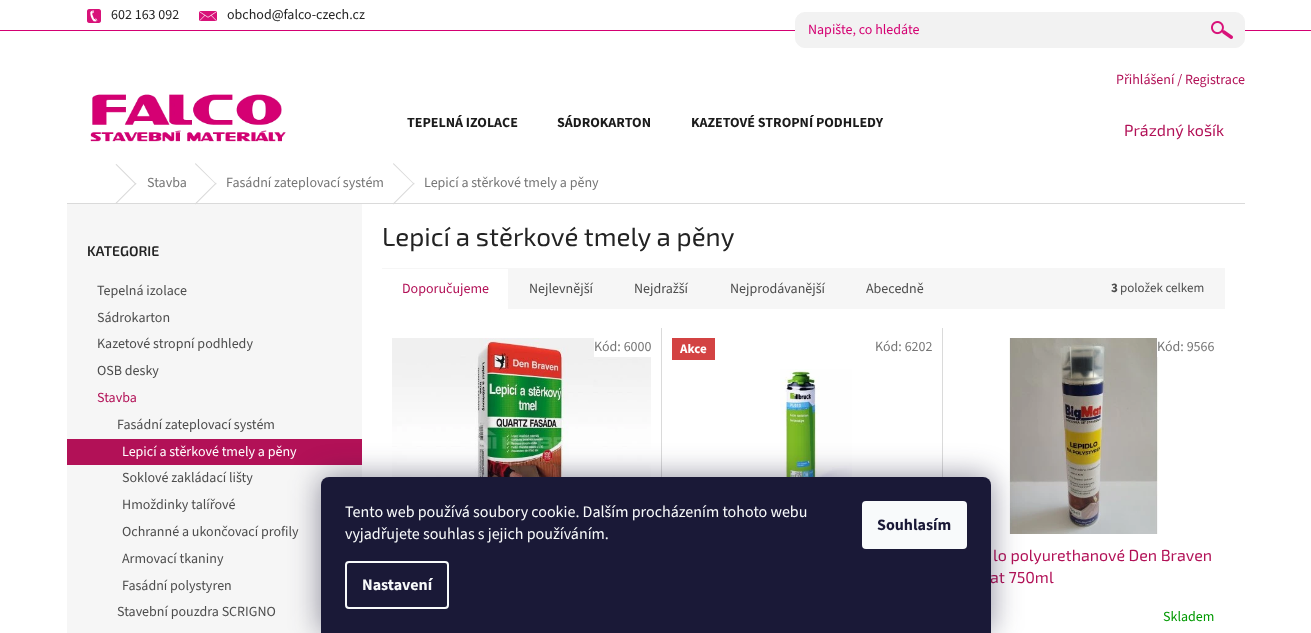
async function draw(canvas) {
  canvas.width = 1311
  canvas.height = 633
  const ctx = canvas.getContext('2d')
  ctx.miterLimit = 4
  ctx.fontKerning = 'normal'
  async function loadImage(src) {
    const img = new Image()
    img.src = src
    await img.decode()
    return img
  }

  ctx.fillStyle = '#fff'
  ctx.fillRect(0, 0, 1311, 633)
  ctx.fillStyle = '#d40072'
  ctx.fillRect(0, 30, 1311, 1)
  ctx.drawImage(await loadImage('image0.png'), 87, 9, 14, 14)
  ctx.font = '14px "Source Sans 3"'
  ctx.fillStyle = '#232323'
  ctx.fillText('602 163 092', 111, 19)
  ctx.drawImage(await loadImage('image1.png'), 199, 11, 18, 10)
  ctx.fillText('obchod@falco-czech.cz', 227, 19)
  ctx.fillStyle = '#f2f2f2'
  ctx.beginPath()
  ctx.roundRect(795.5, 12.5, 449, 35, 9.5)
  ctx.fill()
  ctx.strokeStyle = '#f2f2f2'
  ctx.stroke()
  ctx.fillStyle = '#d40072'
  ctx.fillText('Napište, co hledáte', 808, 34)
  ctx.drawImage(await loadImage('image2.png'), 1211, 21, 22, 18)
  ctx.fillStyle = '#b21157'
  ctx.fillText('Přihlášení / Registrace', 1116, 84)
  ctx.drawImage(await loadImage('image3.png'), 90, 94, 196, 48)
  ctx.font = 'bold 14px "Source Sans 3"'
  ctx.fillStyle = '#1b1b1b'
  ctx.fillText('TEPELNÁ IZOLACE', 407, 127)
  ctx.fillText('SÁDROKARTON', 557, 127)
  ctx.fillText('KAZETOVÉ STROPNÍ PODHLEDY', 691, 127)
  ctx.font = '16px "Exo 2"'
  ctx.fillStyle = '#b21157'
  ctx.fillText('Prázdný košík', 1124, 136)
  ctx.fillStyle = '#dadada'
  ctx.fillRect(67, 203, 1178, 1)
  ctx.beginPath()
  ctx.moveTo(115.5, 164.5)
  ctx.lineTo(116.5, 164)
  ctx.lineTo(136.5, 184)
  ctx.lineTo(135.5, 184.5)
  ctx.closePath()
  ctx.fill()
  ctx.beginPath()
  ctx.moveTo(135.5, 183)
  ctx.lineTo(136.5, 183.5)
  ctx.lineTo(116.5, 203.5)
  ctx.lineTo(115.5, 203)
  ctx.closePath()
  ctx.fill()
  ctx.font = '14px "Source Sans 3"'
  ctx.fillStyle = '#767676'
  ctx.fillText('Stavba', 147, 187)
  ctx.fillStyle = '#dadada'
  ctx.beginPath()
  ctx.moveTo(195, 164)
  ctx.lineTo(195.5, 163)
  ctx.lineTo(216.5, 184)
  ctx.lineTo(216, 184.5)
  ctx.closePath()
  ctx.fill()
  ctx.fillStyle = '#f6f6f6'
  ctx.fillRect(67, 204, 295, 429)
  ctx.fillStyle = '#dadada'
  ctx.beginPath()
  ctx.moveTo(216, 182.5)
  ctx.lineTo(216.5, 183.5)
  ctx.lineTo(195.5, 204.5)
  ctx.lineTo(195, 203.5)
  ctx.closePath()
  ctx.fill()
  ctx.fillStyle = '#767676'
  ctx.fillText('Fasádní zateplovací systém', 226, 187)
  ctx.fillStyle = '#dadada'
  ctx.beginPath()
  ctx.moveTo(393, 164)
  ctx.lineTo(393.5, 163)
  ctx.lineTo(414.5, 184)
  ctx.lineTo(414, 184.5)
  ctx.closePath()
  ctx.fill()
  ctx.beginPath()
  ctx.moveTo(414, 182.5)
  ctx.lineTo(414.5, 183.5)
  ctx.lineTo(393.5, 204.5)
  ctx.lineTo(393, 203.5)
  ctx.closePath()
  ctx.fill()
  ctx.fillStyle = '#767676'
  ctx.fillText('Lepicí a stěrkové tmely a pěny', 424, 187)
  ctx.font = '600 14px "Exo 2"'
  ctx.fillStyle = '#232323'
  ctx.fillText('KATEGORIE', 87, 256)
  ctx.font = '14px "Source Sans 3"'
  ctx.fillStyle = '#4d4d4d'
  ctx.fillText('Tepelná izolace', 97, 295)
  ctx.fillText('Sádrokarton', 97, 322)
  ctx.fillText('Kazetové stropní podhledy', 97, 348)
  ctx.fillText('OSB desky', 97, 375)
  ctx.fillStyle = '#b21157'
  ctx.fillText('Stavba', 97, 402)
  ctx.fillStyle = '#4d4d4d'
  ctx.fillText('Fasádní zateplovací systém', 117, 429)
  ctx.fillStyle = '#b21157'
  ctx.fillRect(67, 439, 295, 26)
  ctx.fillStyle = '#fff'
  ctx.fillText('Lepicí a stěrkové tmely a pěny', 122, 456)
  ctx.fillStyle = '#4d4d4d'
  ctx.fillText('Soklové zakládací lišty', 122, 482)
  ctx.fillText('Hmoždinky talířové', 122, 509)
  ctx.fillText('Ochranné a ukončovací profily', 122, 536)
  ctx.fillText('Armovací tkaniny', 122, 563)
  ctx.fillText('Fasádní polystyren', 122, 590)
  ctx.fillText('Stavební pouzdra SCRIGNO', 117, 616)
  ctx.font = '26px "Exo 2"'
  ctx.fillStyle = '#232323'
  ctx.fillText('Lepicí a stěrkové tmely a pěny', 382, 246)
  ctx.fillStyle = '#f6f6f6'
  ctx.fillRect(382, 268, 843, 41)
  ctx.fillStyle = '#fff'
  ctx.fillRect(382, 269, 126, 40)
  ctx.font = '14px "Source Sans 3"'
  ctx.fillStyle = '#b21157'
  ctx.fillText('Doporučujeme', 402, 293)
  ctx.fillStyle = '#4d4d4d'
  ctx.fillText('Nejlevnější', 529, 293)
  ctx.fillText('Nejdražší', 634, 293)
  ctx.fillText('Nejprodávanější', 730, 293)
  ctx.fillText('Abecedně', 866, 293)
  ctx.font = 'bold 13px "Source Sans 3"'
  ctx.fillText('3', 1111, 292)
  ctx.font = '13px "Source Sans 3"'
  ctx.fillText('položek celkem', 1120, 292)
  ctx.fillStyle = '#dadada'
  ctx.fillRect(661, 328, 1, 149)
  ctx.drawImage(await loadImage('image4.png'), 392, 338, 259, 139)
  ctx.fillStyle = '#fff'
  ctx.fillRect(594, 338, 57, 19)
  ctx.font = '14px "Source Sans 3"'
  ctx.fillStyle = '#767676'
  ctx.fillText('Kód: 6000', 594, 351)
  ctx.fillStyle = '#dadada'
  ctx.fillRect(942, 328, 1, 149)
  ctx.fillStyle = '#d34343'
  ctx.fillRect(672, 338, 43, 22)
  ctx.font = 'bold 13px "Source Sans 3"'
  ctx.fillStyle = '#fff'
  ctx.fillText('Akce', 680, 353)
  ctx.drawImage(await loadImage('image5.png'), 780, 369, 72, 108)
  ctx.font = '14px "Source Sans 3"'
  ctx.fillStyle = '#767676'
  ctx.fillText('Kód: 6202', 875, 351)
  ctx.drawImage(await loadImage('image6.png'), 1009, 338, 150, 196)
  ctx.fillStyle = '#fff'
  ctx.fillRect(1157, 338, 2, 19)
  ctx.fillStyle = '#767676'
  ctx.fillText('Kód: 9566', 1157, 351)
  ctx.font = '16px "Exo 2"'
  ctx.fillStyle = '#b21157'
  ctx.fillText('lo polyurethanové Den Braven', 993, 561)
  ctx.fillText('at 750ml', 990, 583)
  ctx.font = '14px "Source Sans 3"'
  ctx.fillStyle = '#009901'
  ctx.fillText('Skladem', 1163, 621)
  ctx.fillStyle = '#1b193980'
  ctx.filter = 'blur(15px)'
  ctx.beginPath()
  ctx.roundRect(321, 477, 670, 156, 8)
  ctx.fill()
  ctx.filter = 'none'
  ctx.fillStyle = '#1a1937'
  ctx.beginPath()
  ctx.roundRect(321, 477, 670, 156, [8, 8, 0, 0])
  ctx.fill()
  ctx.font = '16px "Source Sans 3"'
  ctx.fillStyle = '#f8fafb'
  ctx.fillText('Tento web používá soubory cookie. Dalším procházením tohoto webu', 345, 517)
  ctx.fillText('vyjadřujete souhlas s jejich používáním.', 345, 539)
  ctx.beginPath()
  ctx.roundRect(346, 562, 102, 46, 3)
  ctx.strokeStyle = '#f8fafb'
  ctx.lineWidth = 2
  ctx.stroke()
  ctx.font = 'bold 16px "Source Sans 3"'
  ctx.fillText('Nastavení', 362, 590)
  ctx.beginPath()
  ctx.roundRect(862, 501, 105, 48, 4)
  ctx.fill()
  ctx.fillStyle = '#1a1937'
  ctx.fillText('Souhlasím', 877, 530)
}

draw(document.querySelector('canvas'))
